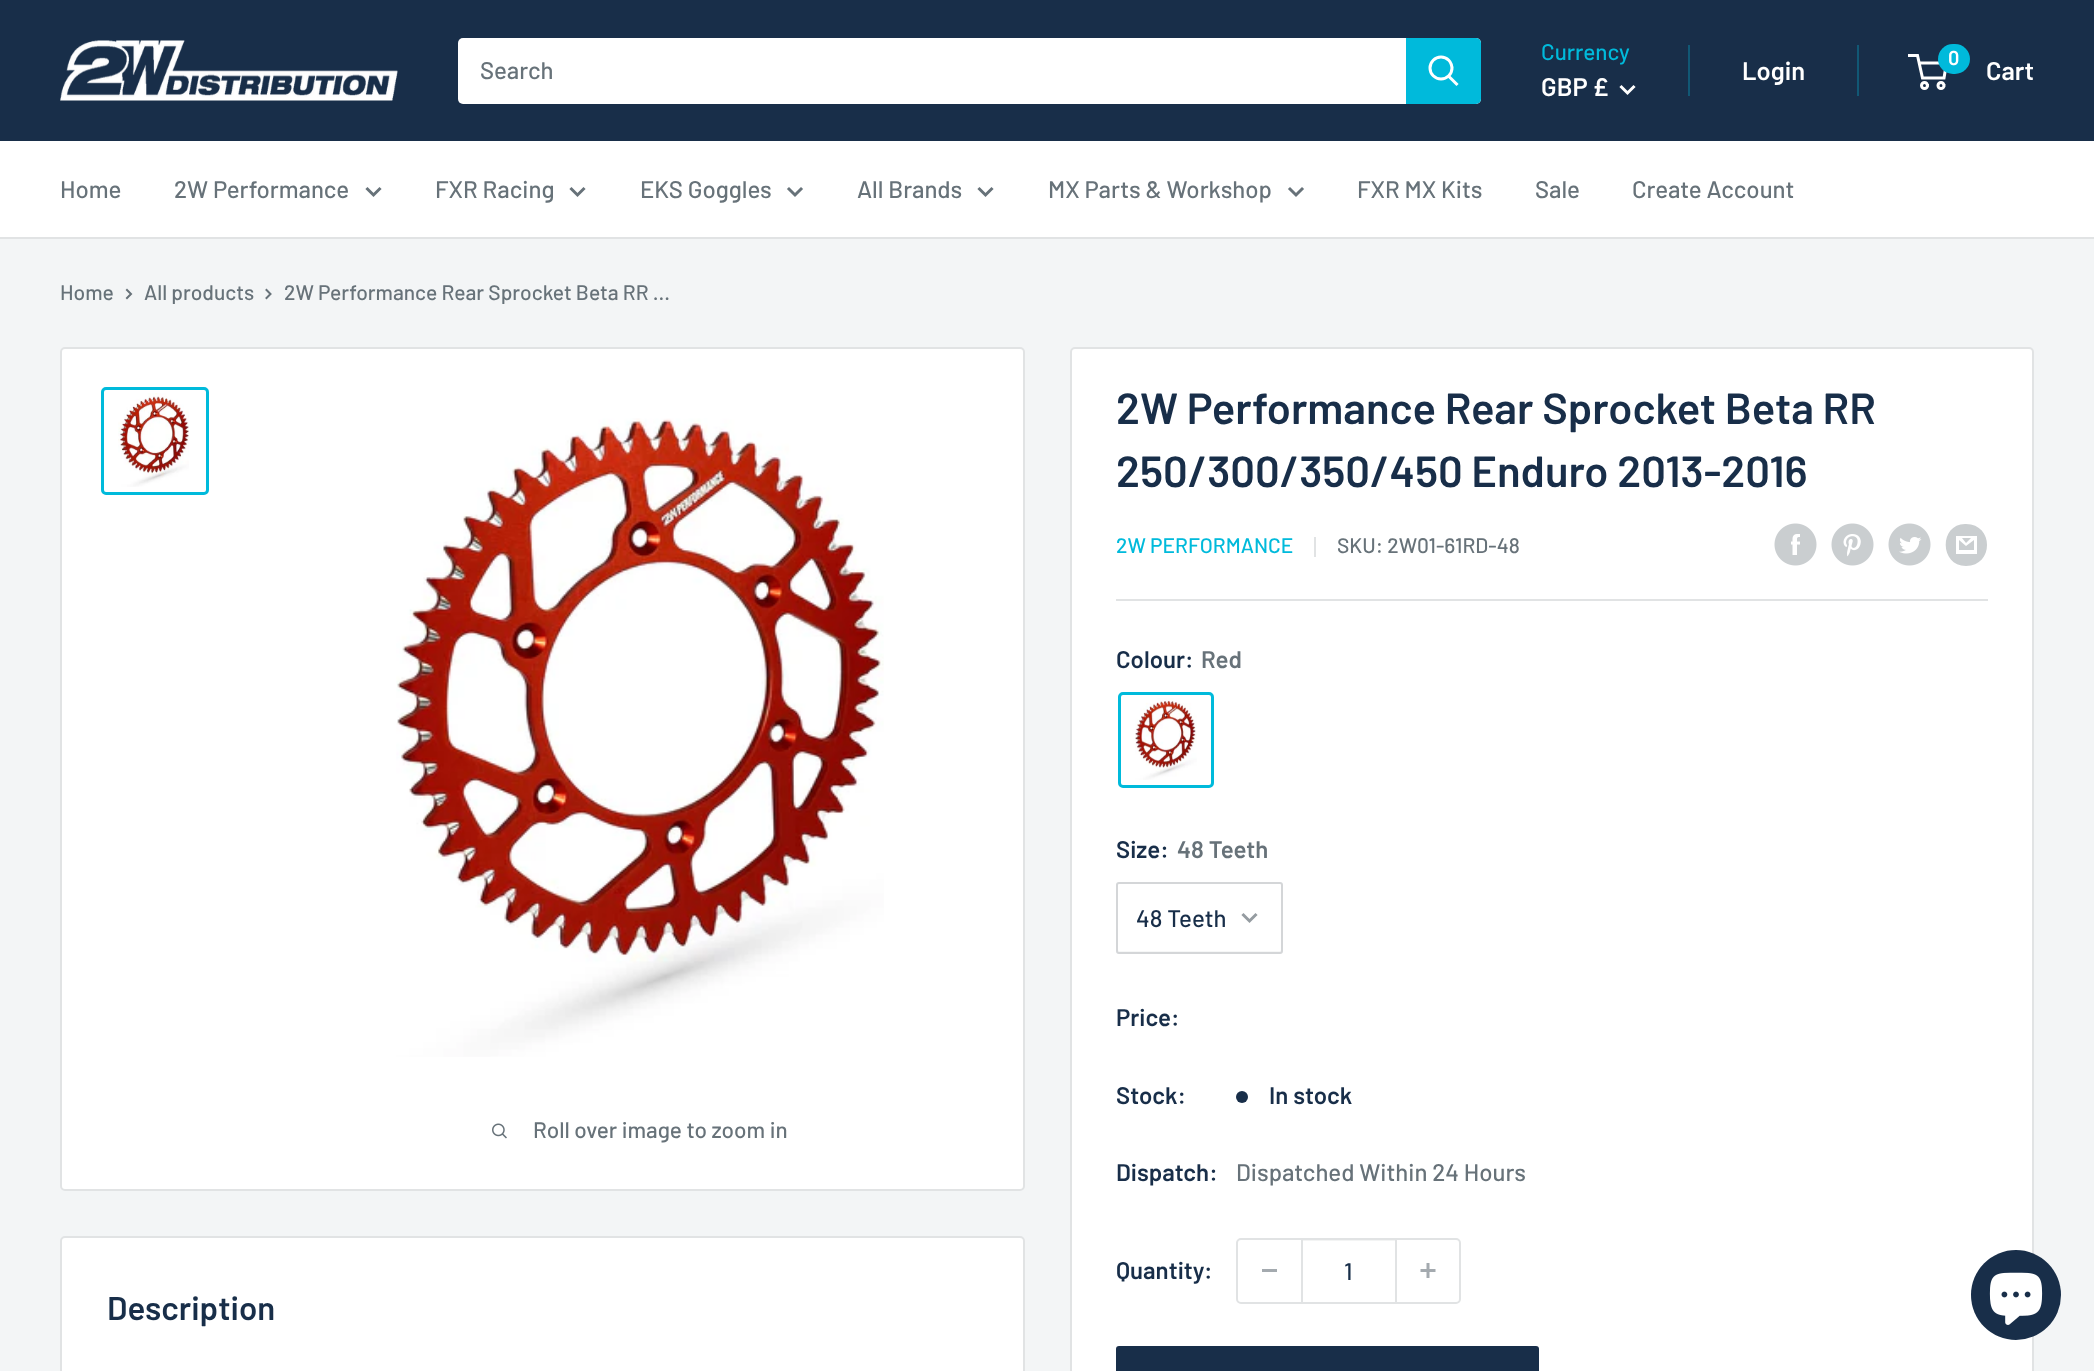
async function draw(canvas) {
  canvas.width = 2094
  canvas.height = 1371
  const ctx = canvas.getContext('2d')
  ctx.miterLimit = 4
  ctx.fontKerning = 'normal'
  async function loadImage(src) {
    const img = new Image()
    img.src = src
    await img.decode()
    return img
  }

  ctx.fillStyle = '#f3f5f6'
  ctx.fillRect(0, 0, 2094, 1371)
  ctx.fillStyle = '#182e49'
  ctx.fillRect(0, 0, 2094, 141)
  ctx.drawImage(await loadImage('image0.png'), 60, 40, 338, 61)
  ctx.fillStyle = '#fff'
  ctx.beginPath()
  ctx.roundRect(458, 38, 1023, 66, 5)
  ctx.fill()
  ctx.font = '500 24px Barlow'
  ctx.fillStyle = '#677279'
  ctx.fillText('Search', 480, 79)
  ctx.fillStyle = '#00badb'
  ctx.beginPath()
  ctx.roundRect(1406, 38, 75, 66, [0, 5, 5, 0])
  ctx.fill()
  ctx.beginPath()
  ctx.moveTo(1456.5, 84)
  ctx.lineTo(1449, 76.5)
  ctx.strokeStyle = '#fff'
  ctx.lineWidth = 3
  ctx.lineCap = 'square'
  ctx.stroke()
  ctx.beginPath()
  ctx.arc(1441, 68, 11, 0, 2 * Math.PI)
  ctx.stroke()
  ctx.font = '500 22.5px Barlow'
  ctx.fillText('Currency', 1541, 60)
  ctx.font = '600 25.5px Barlow'
  ctx.fillStyle = '#fff'
  ctx.fillText('GBP £', 1541, 96)
  ctx.beginPath()
  ctx.moveTo(1633.5, 87)
  ctx.lineTo(1627.5, 93)
  ctx.lineTo(1621.5, 87)
  ctx.stroke()
  ctx.fillStyle = '#115875'
  ctx.fillRect(1688, 45, 2, 51)
  ctx.fillStyle = '#fff'
  ctx.fillText('Login', 1742, 80)
  ctx.fillStyle = '#115875'
  ctx.fillRect(1857, 45, 2, 51)
  ctx.beginPath()
  ctx.arc(1924.5, 85.5, 3, 0, 2 * Math.PI)
  ctx.stroke()
  ctx.beginPath()
  ctx.arc(1941, 85.5, 3, 0, 2 * Math.PI)
  ctx.stroke()
  ctx.beginPath()
  ctx.moveTo(1919, 63)
  ctx.lineTo(1946.5, 63)
  ctx.lineTo(1944, 78)
  ctx.lineTo(1922.5, 78)
  ctx.lineTo(1917.5, 55.5)
  ctx.lineTo(1908, 55.5)
  ctx.lineCap = 'butt'
  ctx.stroke()
  ctx.fillStyle = '#00badb'
  ctx.beginPath()
  ctx.roundRect(1938, 44, 32, 30, 15)
  ctx.fill()
  ctx.font = '600 20px Barlow'
  ctx.fillStyle = '#fff'
  ctx.fillText('0', 1948, 65)
  ctx.font = '600 25.5px Barlow'
  ctx.fillText('Cart', 1986, 80)
  ctx.fillRect(0, 141, 2094, 96)
  ctx.fillStyle = '#e1e3e4'
  ctx.fillRect(0, 237, 2094, 2)
  ctx.font = '500 24px Barlow'
  ctx.fillStyle = '#677279'
  ctx.fillText('Home', 60, 198)
  ctx.fillText('2W Performance', 174, 198)
  ctx.beginPath()
  ctx.moveTo(379.5, 189)
  ctx.lineTo(373.5, 195)
  ctx.lineTo(367.5, 189)
  ctx.strokeStyle = '#677279'
  ctx.lineCap = 'square'
  ctx.stroke()
  ctx.fillText('FXR Racing', 435, 198)
  ctx.beginPath()
  ctx.moveTo(583.5, 189)
  ctx.lineTo(577.5, 195)
  ctx.lineTo(571.5, 189)
  ctx.stroke()
  ctx.fillText('EKS Goggles', 640, 198)
  ctx.beginPath()
  ctx.moveTo(801, 189)
  ctx.lineTo(795, 195)
  ctx.lineTo(789, 189)
  ctx.stroke()
  ctx.fillText('All Brands', 857, 198)
  ctx.beginPath()
  ctx.moveTo(991.5, 189)
  ctx.lineTo(985.5, 195)
  ctx.lineTo(979.5, 189)
  ctx.stroke()
  ctx.fillText('MX Parts & Workshop', 1048, 198)
  ctx.beginPath()
  ctx.moveTo(1302, 189)
  ctx.lineTo(1296, 195)
  ctx.lineTo(1290, 189)
  ctx.stroke()
  ctx.fillText('FXR MX Kits', 1357, 198)
  ctx.fillText('Sale', 1535, 198)
  ctx.fillText('Create Account', 1632, 198)
  ctx.font = '500 21px Barlow'
  ctx.fillText('Home', 60, 300)
  ctx.beginPath()
  ctx.moveTo(127, 290)
  ctx.lineTo(131, 294)
  ctx.lineTo(127, 298)
  ctx.lineWidth = 2
  ctx.stroke()
  ctx.fillText('All products', 144, 300)
  ctx.beginPath()
  ctx.moveTo(266.5, 290)
  ctx.lineTo(270.5, 294)
  ctx.lineTo(266.5, 298)
  ctx.stroke()
  ctx.fillText('2W Performance Rear Sprocket Beta RR ...', 284, 300)
  ctx.fillStyle = '#fff'
  ctx.beginPath()
  ctx.roundRect(61, 348, 963, 842, 4)
  ctx.fill()
  ctx.strokeStyle = '#e1e3e4'
  ctx.stroke()
  ctx.beginPath()
  ctx.roundRect(102.5, 388.5, 105, 105, 3.5)
  ctx.strokeStyle = '#00badb'
  ctx.lineWidth = 3
  ctx.stroke()
  ctx.drawImage(await loadImage('image1.png'), 118, 393, 71, 94)
  ctx.drawImage(await loadImage('image2.png'), 396, 418, 488, 639)
  ctx.drawImage(await loadImage('image3.png'), 492, 1123, 15, 16)
  ctx.font = '500 22.5px Barlow'
  ctx.fillStyle = '#677279'
  ctx.fillText('Roll over image to zoom in', 533, 1138)
  ctx.fillStyle = '#fff'
  ctx.beginPath()
  ctx.roundRect(1071, 348, 962, 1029, 4)
  ctx.fill()
  ctx.strokeStyle = '#e1e3e4'
  ctx.lineWidth = 2
  ctx.stroke()
  ctx.font = '600 43.5px Barlow'
  ctx.fillStyle = '#182e49'
  ctx.fillText('2W Performance Rear Sprocket Beta RR', 1116, 424)
  ctx.fillText('250/300/350/450 Enduro 2013-2016', 1116, 487)
  ctx.font = '500 21px Barlow'
  ctx.fillStyle = '#00badb'
  ctx.fillText('2W PERFORMANCE', 1116, 553)
  ctx.fillStyle = '#e1e3e4'
  ctx.fillRect(1314, 537, 2, 20)
  ctx.fillStyle = '#677279'
  ctx.fillText('SKU: 2W01-61RD-48', 1337, 553)
  ctx.drawImage(await loadImage('image4.png'), 1774, 523, 43, 43)
  ctx.drawImage(await loadImage('image5.png'), 1831, 523, 43, 43)
  ctx.drawImage(await loadImage('image6.png'), 1888, 523, 43, 43)
  ctx.fillStyle = '#caced0'
  ctx.beginPath()
  ctx.moveTo(1966, 566)
  ctx.bezierCurveTo(1939, 566, 1939, 523, 1966, 524)
  ctx.bezierCurveTo(1994, 524, 1994, 566, 1966, 566)
  ctx.closePath()
  ctx.moveTo(1962, 538)
  ctx.lineTo(1971, 538)
  ctx.lineTo(1966, 543)
  ctx.closePath()
  ctx.moveTo(1974, 540)
  ctx.lineTo(1974, 550)
  ctx.lineTo(1959, 550)
  ctx.lineTo(1959, 540)
  ctx.lineTo(1966, 546)
  ctx.closePath()
  ctx.moveTo(1977, 536)
  ctx.lineTo(1956, 536)
  ctx.lineTo(1956, 554)
  ctx.lineTo(1977, 554)
  ctx.closePath()
  ctx.fill()
  ctx.fillStyle = '#e1e3e4'
  ctx.fillRect(1116, 599, 872, 2)
  ctx.font = '600 24px Barlow'
  ctx.fillStyle = '#182e49'
  ctx.fillText('Colour:', 1116, 668)
  ctx.fillStyle = '#677279'
  ctx.fillText('Red', 1201, 668)
  ctx.beginPath()
  ctx.roundRect(1119.5, 693.5, 93, 93, 3.5)
  ctx.strokeStyle = '#00badb'
  ctx.lineWidth = 3
  ctx.stroke()
  ctx.drawImage(await loadImage('image7.png'), 1135, 698, 62, 82)
  ctx.fillStyle = '#182e49'
  ctx.fillText('Size:', 1116, 858)
  ctx.fillStyle = '#677279'
  ctx.fillText('48 Teeth', 1177, 858)
  ctx.fillStyle = '#f6f7f7'
  ctx.beginPath()
  ctx.moveTo(1118, 950)
  ctx.lineTo(1118, 952)
  ctx.bezierCurveTo(1118, 952, 1119, 953, 1120, 953)
  ctx.lineTo(1280, 953)
  ctx.bezierCurveTo(1280, 953, 1281, 952, 1281, 952)
  ctx.lineTo(1281, 950)
  ctx.lineTo(1280, 951)
  ctx.lineTo(1119, 951)
  ctx.closePath()
  ctx.fill()
  ctx.beginPath()
  ctx.roundRect(1117, 883, 165, 70, 2)
  ctx.strokeStyle = '#d4d6d8'
  ctx.lineWidth = 2
  ctx.stroke()
  ctx.font = '500 24px Barlow'
  ctx.fillStyle = '#182e49'
  ctx.fillText('48 Teeth', 1136, 927)
  ctx.beginPath()
  ctx.moveTo(1255.5, 915)
  ctx.lineTo(1249.5, 921)
  ctx.lineTo(1243.5, 915)
  ctx.strokeStyle = '#959ca1'
  ctx.lineWidth = 3
  ctx.stroke()
  ctx.font = '600 24px Barlow'
  ctx.fillText('Price:', 1116, 1026)
  ctx.fillText('Stock:', 1116, 1104)
  ctx.beginPath()
  ctx.arc(1242, 1097, 6, 0, 2 * Math.PI)
  ctx.fill()
  ctx.fillText('In stock', 1269, 1104)
  ctx.fillText('Dispatch:', 1116, 1181)
  ctx.font = '500 24px Barlow'
  ctx.fillStyle = '#677279'
  ctx.fillText('Dispatched Within 24 Hours', 1236, 1181)
  ctx.font = '600 24px Barlow'
  ctx.fillStyle = '#182e49'
  ctx.fillText('Quantity:', 1116, 1279)
  ctx.beginPath()
  ctx.roundRect(1237, 1239, 223, 64, 4)
  ctx.strokeStyle = '#e1e3e4'
  ctx.lineWidth = 2
  ctx.stroke()
  ctx.fillStyle = '#a4aaaf'
  ctx.fillRect(1262, 1269, 15, 3)
  ctx.fillStyle = '#e1e3e466'
  ctx.fillRect(1302, 1240, 93, 1)
  ctx.fillStyle = '#e1e3e4'
  ctx.fillRect(1395, 1239, 2, 63)
  ctx.fillRect(1301, 1239, 2, 63)
  ctx.font = '500 24px Barlow'
  ctx.fillStyle = '#182e49'
  ctx.fillText('1', 1344, 1280)
  ctx.drawImage(await loadImage('image8.png'), 1420, 1263, 16, 15)
  ctx.beginPath()
  ctx.roundRect(1116, 1346, 423, 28, 3)
  ctx.fill()
  ctx.fillStyle = '#fff'
  ctx.beginPath()
  ctx.roundRect(61, 1237, 963, 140, 4)
  ctx.fill()
  ctx.stroke()
  ctx.font = '600 33px Barlow'
  ctx.fillStyle = '#182e49'
  ctx.fillText('Description', 107, 1320)
  ctx.beginPath()
  ctx.arc(2016, 1295, 45, 0, 2 * Math.PI)
  ctx.fill()
  ctx.drawImage(await loadImage('image9.png'), 1989, 1272, 54, 53)
}

draw(document.querySelector('canvas'))
